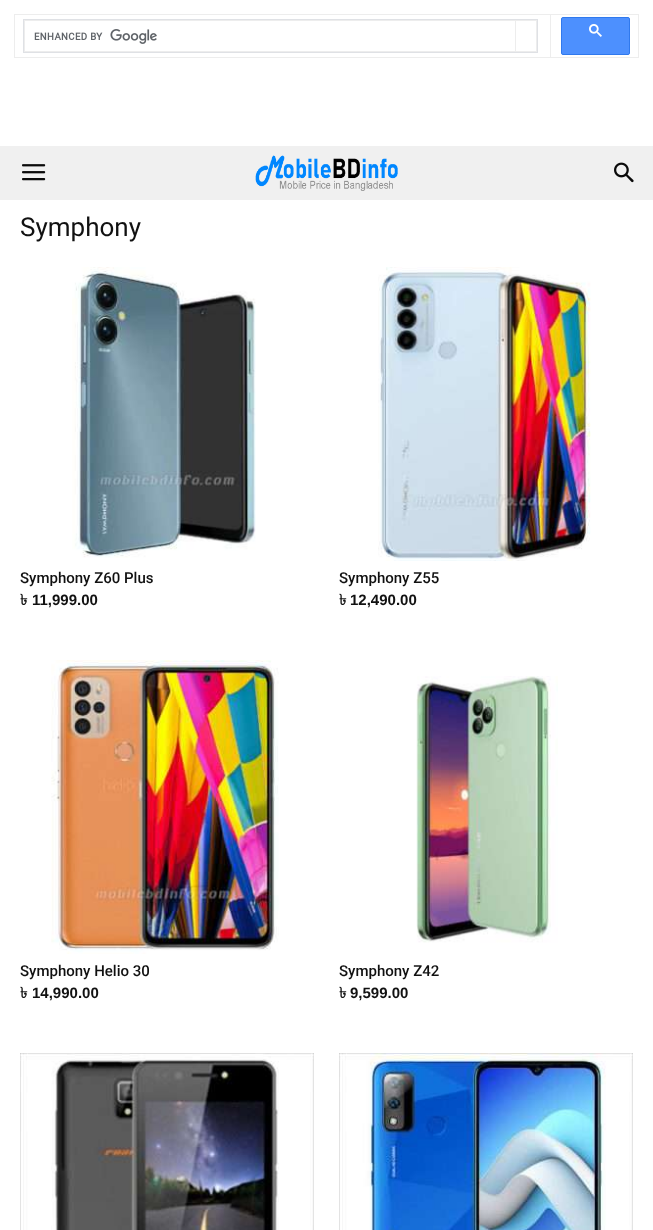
async function draw(canvas) {
  canvas.width = 653
  canvas.height = 1230
  const ctx = canvas.getContext('2d')
  ctx.miterLimit = 4
  ctx.fontKerning = 'normal'
  async function loadImage(src) {
    const img = new Image()
    img.src = src
    await img.decode()
    return img
  }

  ctx.fillStyle = '#fff'
  ctx.fillRect(0, 0, 653, 1230)
  ctx.fillStyle = '#ededed'
  ctx.fillRect(550, 14, 89, 1)
  ctx.fillRect(638, 14, 1, 44)
  ctx.fillRect(550, 57, 89, 1)
  ctx.fillRect(550, 14, 1, 44)
  ctx.fillRect(14, 14, 537, 1)
  ctx.fillRect(14, 57, 537, 1)
  ctx.fillRect(14, 14, 1, 44)
  ctx.strokeStyle = '#dfe1e5'
  ctx.strokeRect(23.5, 19.5, 514, 33)
  ctx.fillRect(515, 20, 22, 1)
  ctx.fillRect(536, 20, 1, 32)
  ctx.fillRect(515, 51, 22, 1)
  ctx.fillRect(515, 20, 1, 32)
  ctx.fillRect(24, 20, 492, 1)
  ctx.fillRect(24, 51, 492, 1)
  ctx.fillRect(24, 20, 1, 32)
  ctx.drawImage(await loadImage('image0.png'), 34, 29, 123, 15)
  ctx.fillStyle = '#4d90fe'
  ctx.beginPath()
  ctx.roundRect(561.5, 17.5, 68, 37, 1.5)
  ctx.fill()
  ctx.strokeStyle = '#3079ed'
  ctx.stroke()
  ctx.drawImage(await loadImage('image1.png'), 589, 24, 13, 13)
  ctx.fillStyle = '#f0f0f0'
  ctx.fillRect(0, 146, 653, 54)
  ctx.drawImage(await loadImage('image2.png'), 22, 164, 24, 17)
  ctx.drawImage(await loadImage('image3.png'), 255, 155, 143, 36)
  ctx.drawImage(await loadImage('image4.png'), 614, 162, 20, 21)
  ctx.font = '26px Roboto'
  ctx.fillStyle = '#111'
  ctx.fillText('Symphony', 20, 236)
  ctx.drawImage(await loadImage('image5.png'), 72, 267, 184, 291)
  ctx.font = '500 15px Roboto'
  ctx.fillText('Symphony Z60 Plus', 20, 583)
  ctx.font = 'bold 15px Lohit Bengali'
  ctx.fillText('৳', 20, 605)
  ctx.font = 'bold 15px Liberation Sans'
  ctx.fillText('11,999.00', 32, 605)
  ctx.drawImage(await loadImage('image6.png'), 378, 267, 213, 294)
  ctx.font = '500 15px Roboto'
  ctx.fillText('Symphony Z55', 339, 583)
  ctx.font = 'bold 15px Lohit Bengali'
  ctx.fillText('৳', 339, 605)
  ctx.font = 'bold 15px Liberation Sans'
  ctx.fillText('12,490.00', 350, 605)
  ctx.drawImage(await loadImage('image7.png'), 51, 660, 228, 294)
  ctx.font = '500 15px Roboto'
  ctx.fillText('Symphony Helio 30', 20, 976)
  ctx.font = 'bold 15px Lohit Bengali'
  ctx.fillText('৳', 20, 998)
  ctx.font = 'bold 15px Liberation Sans'
  ctx.fillText('14,990.00', 32, 998)
  ctx.drawImage(await loadImage('image8.png'), 416, 676, 142, 267)
  ctx.font = '500 15px Roboto'
  ctx.fillText('Symphony Z42', 339, 976)
  ctx.font = 'bold 15px Lohit Bengali'
  ctx.fillText('৳', 339, 998)
  ctx.font = 'bold 15px Liberation Sans'
  ctx.fillText('9,599.00', 350, 998)
  ctx.drawImage(await loadImage('image9.png'), 20, 1053, 294, 177)
  ctx.drawImage(await loadImage('image10.png'), 339, 1053, 294, 177)
}

draw(document.querySelector('canvas'))
